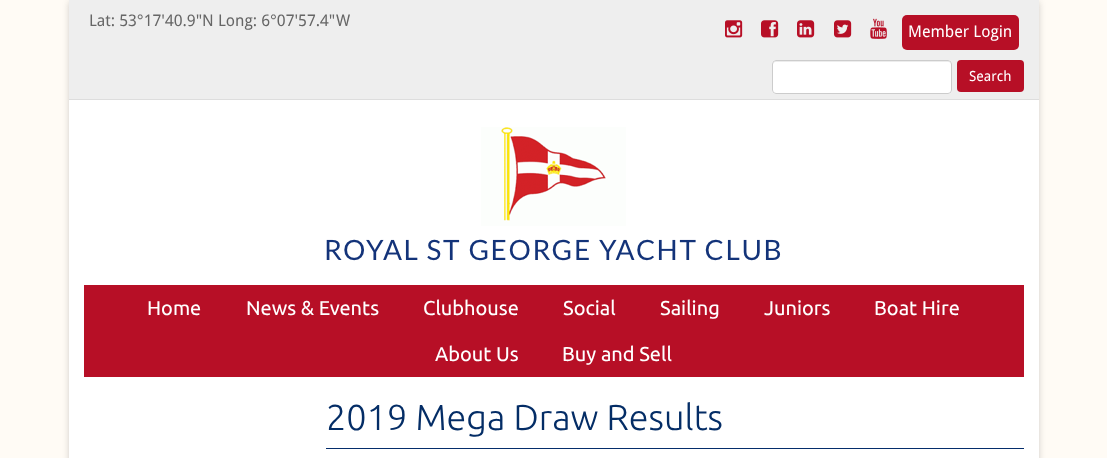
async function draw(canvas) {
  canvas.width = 1107
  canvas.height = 458
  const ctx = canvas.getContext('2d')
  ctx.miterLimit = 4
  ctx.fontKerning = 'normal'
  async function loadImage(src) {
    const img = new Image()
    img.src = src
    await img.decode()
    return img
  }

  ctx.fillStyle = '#fffbf5'
  ctx.fillRect(0, 0, 1107, 458)
  ctx.fillStyle = '#6464644d'
  ctx.filter = 'blur(3px)'
  ctx.beginPath()
  ctx.rect(69, 2, 970, 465)
  ctx.fill()
  ctx.filter = 'none'
  ctx.fillStyle = '#fff'
  ctx.fillRect(69, 100, 970, 358)
  ctx.fillStyle = '#eee'
  ctx.fillRect(69, 0, 970, 99)
  ctx.fillStyle = '#ddd'
  ctx.fillRect(69, 99, 970, 1)
  ctx.font = '16px Droid Sans'
  ctx.fillStyle = '#666'
  ctx.fillText('Lat: 53°17\'40.9"N Long: 6°07\'57.4"W', 89, 26)
  ctx.drawImage(await loadImage('image0.png'), 725, 20, 18, 18)
  ctx.drawImage(await loadImage('image1.png'), 761, 20, 18, 18)
  ctx.drawImage(await loadImage('image2.png'), 797, 20, 18, 18)
  ctx.drawImage(await loadImage('image3.png'), 834, 20, 18, 18)
  ctx.drawImage(await loadImage('image4.png'), 870, 18, 17, 21)
  ctx.fillStyle = '#b70f26'
  ctx.beginPath()
  ctx.roundRect(902, 15, 117, 35, 5)
  ctx.fill()
  ctx.fillStyle = '#fff'
  ctx.fillText('Member Login', 908, 37)
  ctx.beginPath()
  ctx.roundRect(772, 60, 180, 34, 4)
  ctx.fill()
  ctx.fillStyle = '#ececec'
  ctx.beginPath()
  ctx.moveTo(776, 62)
  ctx.lineTo(948, 62)
  ctx.bezierCurveTo(950, 62, 951, 63, 951, 65)
  ctx.lineTo(951, 64)
  ctx.bezierCurveTo(951, 62, 950, 61, 948, 61)
  ctx.lineTo(776, 61)
  ctx.bezierCurveTo(774, 61, 773, 62, 773, 64)
  ctx.lineTo(773, 65)
  ctx.bezierCurveTo(773, 63, 774, 62, 776, 62)
  ctx.closePath()
  ctx.fill()
  ctx.beginPath()
  ctx.roundRect(772.5, 60.5, 179, 33, 3.5)
  ctx.strokeStyle = '#ccc'
  ctx.stroke()
  ctx.fillStyle = '#b70f26'
  ctx.beginPath()
  ctx.roundRect(957, 60, 67, 32, 4)
  ctx.fill()
  ctx.font = '14px Droid Sans'
  ctx.fillStyle = '#fff'
  ctx.fillText('Search', 969, 81)
  ctx.drawImage(await loadImage('image5.png'), 326, 127, 455, 134)
  ctx.fillStyle = '#b70f26'
  ctx.fillRect(84, 285, 940, 92)
  ctx.font = '20px Ubuntu'
  ctx.fillStyle = '#fff'
  ctx.fillText('Home', 147, 315)
  ctx.fillText('News & Events', 246, 315)
  ctx.fillText('Clubhouse', 423, 315)
  ctx.fillText('Social', 563, 315)
  ctx.fillText('Sailing', 660, 315)
  ctx.fillText('Juniors', 764, 315)
  ctx.fillText('Boat Hire', 874, 315)
  ctx.fillText('About Us', 435, 361)
  ctx.fillText('Buy and Sell', 562, 361)
  ctx.fillStyle = '#042d6b'
  ctx.fillRect(326, 448, 698, 1)
  ctx.font = '300 36px Ubuntu'
  ctx.fillStyle = '#042d66'
  ctx.fillText('2019 Mega Draw Results', 326, 430)
}

draw(document.querySelector('canvas'))
